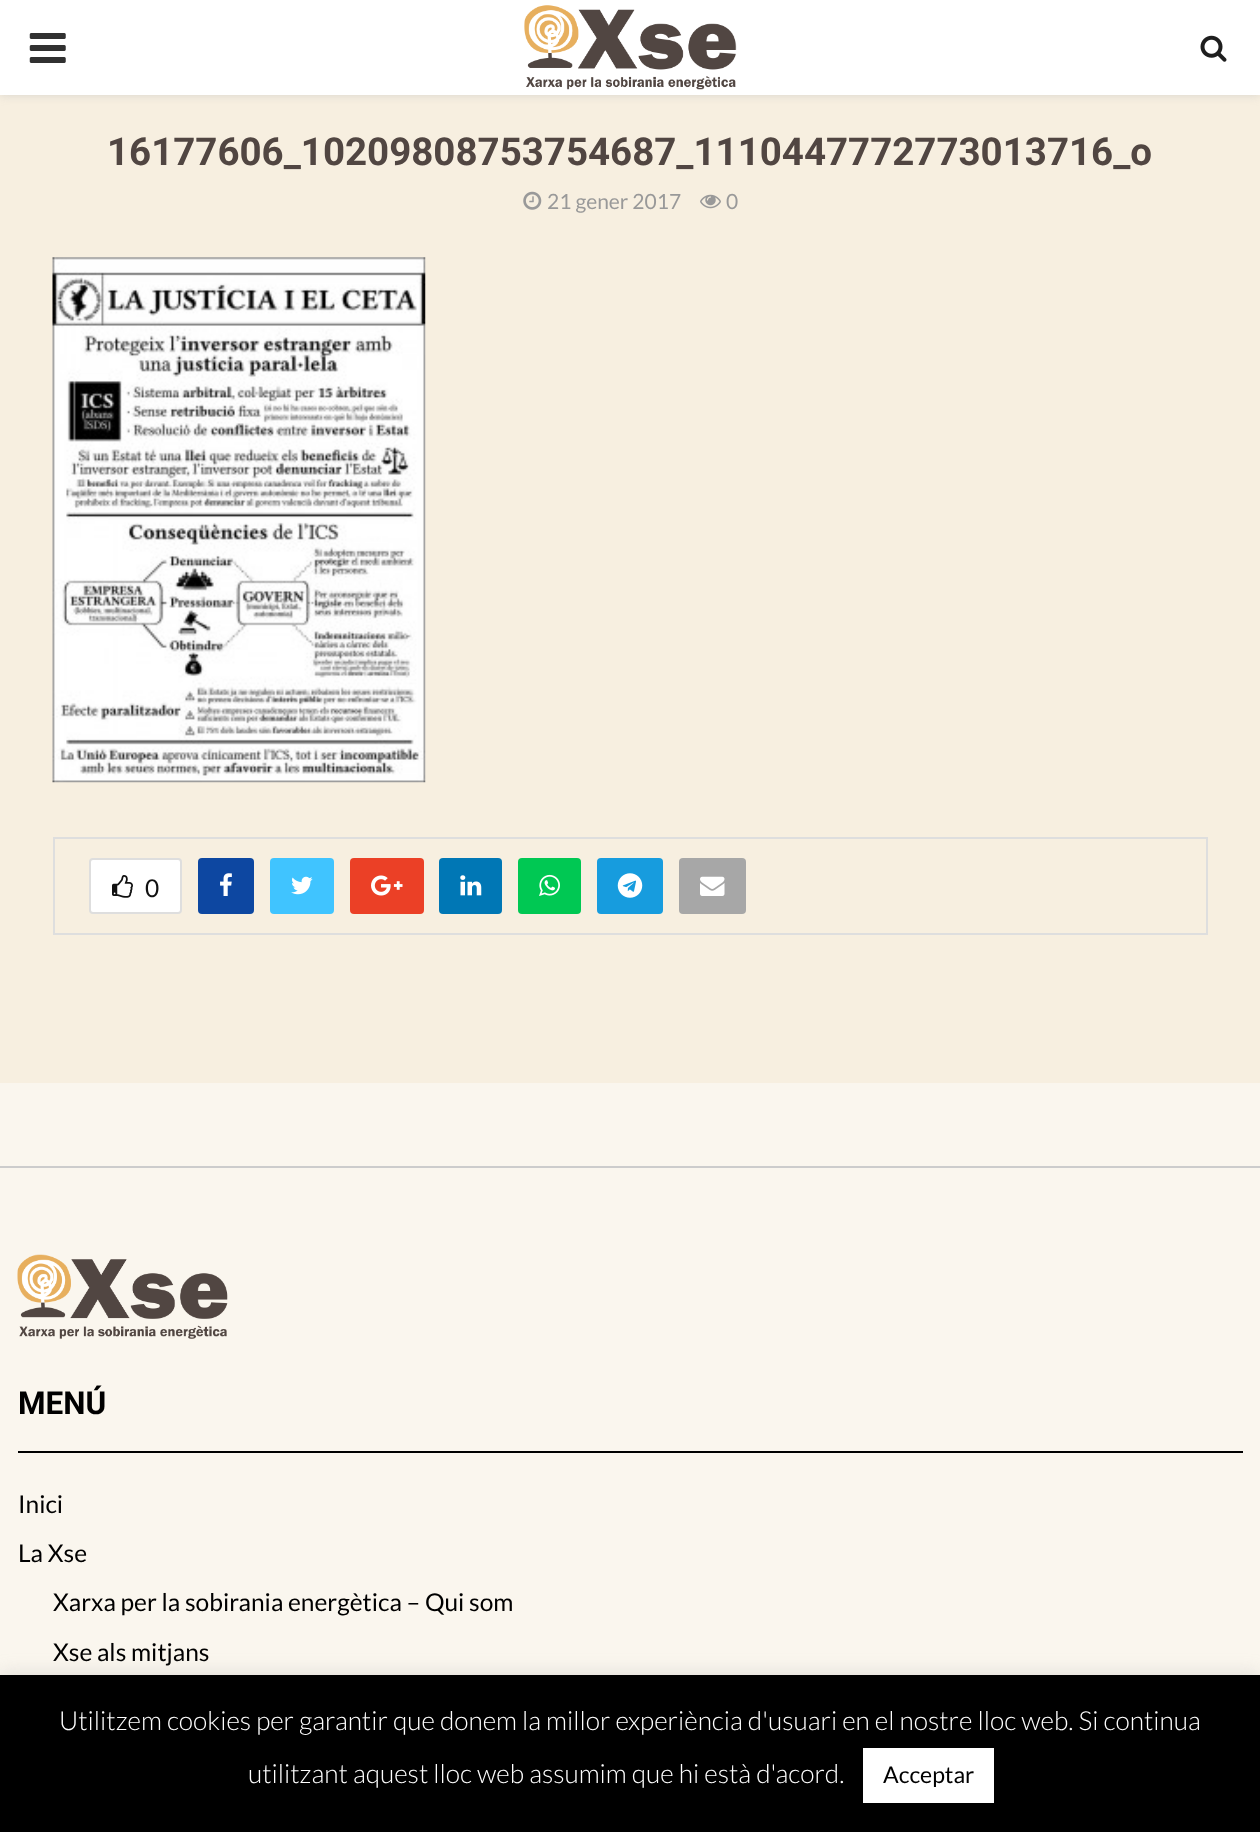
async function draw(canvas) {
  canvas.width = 1260
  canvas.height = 1832
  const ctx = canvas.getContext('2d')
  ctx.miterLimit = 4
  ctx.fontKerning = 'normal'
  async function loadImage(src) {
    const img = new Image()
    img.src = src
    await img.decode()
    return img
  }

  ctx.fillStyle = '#f7efe0'
  ctx.fillRect(0, 0, 1260, 1832)
  ctx.fillStyle = '#bebebe75'
  ctx.filter = 'blur(4.5px)'
  ctx.beginPath()
  ctx.rect(0, 2, 1260, 94)
  ctx.fill()
  ctx.filter = 'none'
  ctx.fillStyle = '#fff'
  ctx.fillRect(0, 0, 1260, 95)
  ctx.drawImage(await loadImage('image0.png'), 29, 33, 37, 30)
  ctx.drawImage(await loadImage('image1.png'), 524, 5, 213, 85)
  ctx.drawImage(await loadImage('image2.png'), 1200, 35, 27, 27)
  ctx.font = 'bold 38.5px Roboto'
  ctx.fillStyle = '#514642'
  ctx.fillText('16177606_10209808753754687_1110447772773013716_o', 107, 165)
  ctx.drawImage(await loadImage('image3.png'), 523, 191, 19, 19)
  ctx.font = '21px Lato'
  ctx.fillStyle = '#999'
  ctx.fillText('21 gener 2017', 547, 209)
  ctx.drawImage(await loadImage('image4.png'), 700, 194, 21, 15)
  ctx.fillText('0', 726, 209)
  ctx.drawImage(await loadImage('image5.png'), 52, 257, 374, 526)
  ctx.strokeStyle = '#dedede'
  ctx.lineWidth = 2
  ctx.strokeRect(54, 838, 1153, 96)
  ctx.fillStyle = '#fff'
  ctx.beginPath()
  ctx.roundRect(90, 859, 91, 54, 3)
  ctx.fill()
  ctx.stroke()
  ctx.drawImage(await loadImage('image6.png'), 112, 875, 21, 23)
  ctx.font = '24.5px Lato'
  ctx.fillStyle = '#111'
  ctx.fillText('0', 145, 897)
  ctx.fillStyle = '#0d47a1'
  ctx.beginPath()
  ctx.roundRect(198, 858, 56, 56, 4)
  ctx.fill()
  ctx.drawImage(await loadImage('image7.png'), 220, 873, 12, 23)
  ctx.fillStyle = '#40c4ff'
  ctx.beginPath()
  ctx.roundRect(270, 858, 64, 56, 4)
  ctx.fill()
  ctx.drawImage(await loadImage('image8.png'), 291, 876, 22, 19)
  ctx.fillStyle = '#eb4026'
  ctx.beginPath()
  ctx.roundRect(350, 858, 74, 56, 4)
  ctx.fill()
  ctx.drawImage(await loadImage('image9.png'), 371, 875, 32, 21)
  ctx.fillStyle = '#0077b5'
  ctx.beginPath()
  ctx.roundRect(439, 858, 63, 56, 4)
  ctx.fill()
  ctx.drawImage(await loadImage('image10.png'), 460, 875, 22, 21)
  ctx.fillStyle = '#00c853'
  ctx.beginPath()
  ctx.roundRect(518, 858, 63, 56, 4)
  ctx.fill()
  ctx.drawImage(await loadImage('image11.png'), 539, 874, 21, 22)
  ctx.fillStyle = '#179cde'
  ctx.beginPath()
  ctx.roundRect(597, 858, 66, 56, 4)
  ctx.fill()
  ctx.drawImage(await loadImage('image12.png'), 617, 873, 26, 25)
  ctx.fillStyle = '#a7a7a7'
  ctx.beginPath()
  ctx.roundRect(679, 858, 67, 56, 4)
  ctx.fill()
  ctx.drawImage(await loadImage('image13.png'), 700, 876, 25, 20)
  ctx.fillStyle = '#faf6ee'
  ctx.fillRect(0, 1083, 1260, 592)
  ctx.fillStyle = '#ccc'
  ctx.fillRect(0, 1166, 1260, 2)
  ctx.drawImage(await loadImage('image14.png'), 17, 1254, 211, 85)
  ctx.fillStyle = '#000'
  ctx.fillRect(18, 1451, 1225, 2)
  ctx.font = 'bold 31.5px Roboto'
  ctx.fillText('MENÚ', 18, 1414)
  ctx.font = '24.5px Lato'
  ctx.fillText('Inici', 18, 1513)
  ctx.fillText('La Xse', 18, 1562)
  ctx.fillText('Xarxa per la sobirania energètica – Qui som', 53, 1611)
  ctx.fillText('Xse als mitjans', 53, 1661)
  ctx.fillStyle = '#acabab4d'
  ctx.filter = 'blur(9px)'
  ctx.beginPath()
  ctx.rect(0, 1673, 1260, 158)
  ctx.fill()
  ctx.filter = 'none'
  ctx.fillStyle = '#000'
  ctx.fillRect(0, 1675, 1260, 157)
  ctx.font = '300 26.25px Lato'
  ctx.fillStyle = '#fff'
  ctx.fillText('Utilitzem cookies per garantir que donem la millor experiència d\'usuari en el nostre lloc web. Si continua', 59, 1730)
  ctx.fillText('utilitzant aquest lloc web assumim que hi està d\'acord.', 248, 1783)
  ctx.fillRect(863, 1748, 131, 55)
  ctx.font = '23px Lato'
  ctx.fillStyle = '#000'
  ctx.fillText('Acceptar', 883, 1783)
}

draw(document.querySelector('canvas'))
